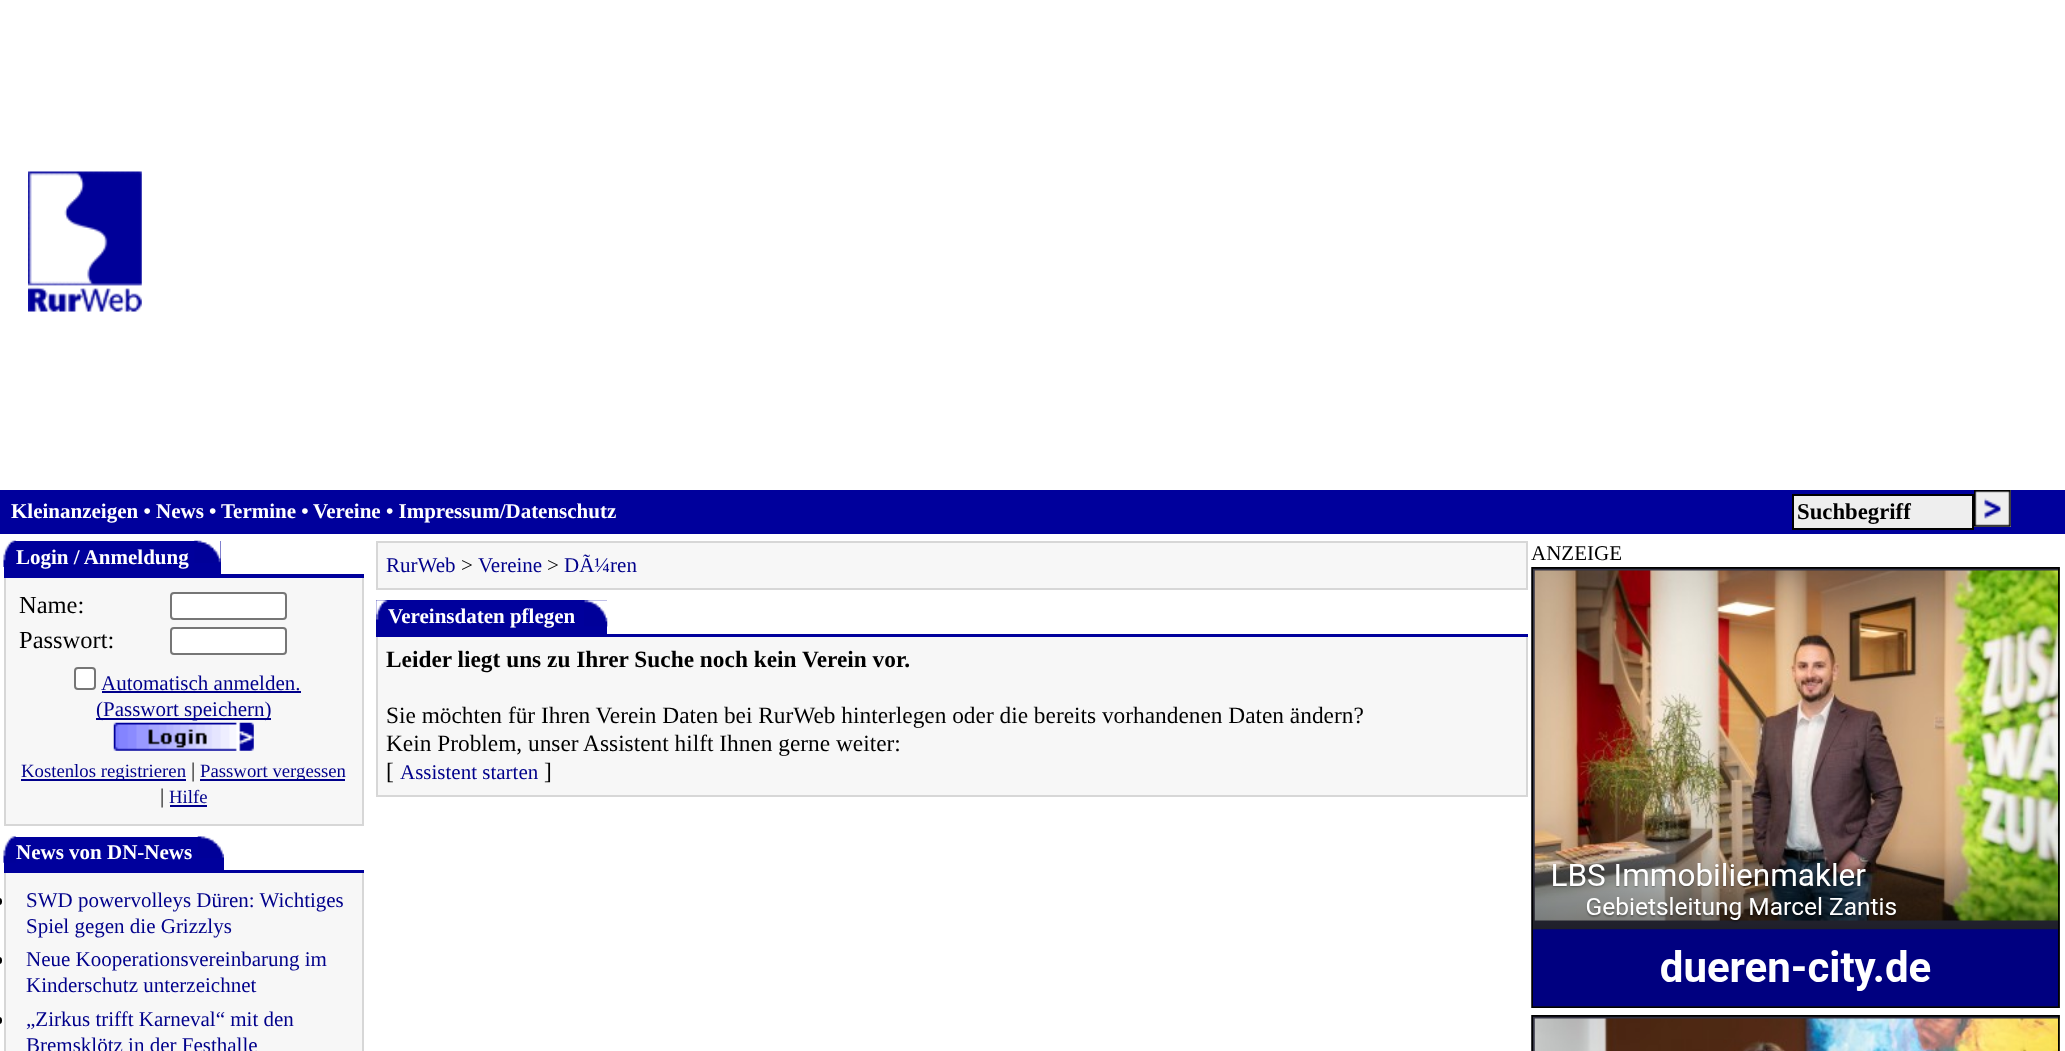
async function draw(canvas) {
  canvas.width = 2065
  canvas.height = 1051
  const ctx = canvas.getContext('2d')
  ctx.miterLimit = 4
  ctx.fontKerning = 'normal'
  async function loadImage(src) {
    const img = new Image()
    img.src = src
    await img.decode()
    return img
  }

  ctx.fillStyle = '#fff'
  ctx.fillRect(0, 0, 2065, 1051)
  ctx.drawImage(await loadImage('image0.png'), 28, 171, 114, 141)
  ctx.fillStyle = '#00009c'
  ctx.fillRect(0, 490, 2065, 44)
  ctx.font = 'bold 21px Liberation Serif'
  ctx.fillStyle = '#fff'
  ctx.fillText('Kleinanzeigen • News •', 11, 518)
  ctx.fillText('Termine •', 221, 518)
  ctx.fillText('Vereine • Impressum/Datenschutz', 313, 518)
  ctx.fillStyle = '#eee'
  ctx.beginPath()
  ctx.rect(1793, 495, 180, 34)
  ctx.fill()
  ctx.strokeStyle = '#000'
  ctx.lineWidth = 2
  ctx.stroke()
  ctx.font = 'bold 22.75px Liberation Serif'
  ctx.fillStyle = '#000'
  ctx.fillText('Suchbegriff', 1797, 519)
  ctx.fillStyle = '#fff'
  ctx.fillRect(1974, 490, 37, 37)
  ctx.drawImage(await loadImage('image1.png'), 1974, 490, 37, 37)
  ctx.fillStyle = '#00009c'
  ctx.fillRect(4, 574, 360, 4)
  ctx.fillRect(4, 541, 217, 33)
  ctx.drawImage(await loadImage('image2.png'), 3, 540, 13, 27)
  ctx.font = 'bold 21px Liberation Serif'
  ctx.fillStyle = '#fff'
  ctx.fillText('Login / Anmeldung', 16, 564)
  ctx.drawImage(await loadImage('image3.png'), 194, 540, 27, 23)
  ctx.fillStyle = '#f7f7f7'
  ctx.fillRect(6, 578, 356, 246)
  ctx.fillStyle = '#d7d7d7'
  ctx.fillRect(362, 578, 2, 248)
  ctx.fillRect(4, 824, 360, 2)
  ctx.fillRect(4, 578, 2, 248)
  ctx.font = '24.5px Liberation Serif'
  ctx.fillStyle = '#000'
  ctx.fillText('Name:', 19, 613)
  ctx.fillStyle = '#fff'
  ctx.beginPath()
  ctx.roundRect(171, 593, 115, 26, 3)
  ctx.fill()
  ctx.strokeStyle = '#767676'
  ctx.stroke()
  ctx.fillStyle = '#000'
  ctx.fillText('Passwort:', 19, 648)
  ctx.fillStyle = '#fff'
  ctx.beginPath()
  ctx.roundRect(171, 628, 115, 26, 3)
  ctx.fill()
  ctx.stroke()
  ctx.beginPath()
  ctx.roundRect(75, 668, 20, 21, 3)
  ctx.fill()
  ctx.stroke()
  ctx.font = '21px Liberation Serif'
  ctx.fillStyle = '#00008b'
  ctx.fillText('Automatisch anmelden.', 101, 690)
  ctx.fillRect(102, 691, 199, 2)
  ctx.fillRect(96, 718, 175, 2)
  ctx.fillText('(Passwort speichern)', 96, 716)
  ctx.fillStyle = '#fff'
  ctx.fillRect(114, 723, 140, 28)
  ctx.drawImage(await loadImage('image4.png'), 113, 722, 141, 29)
  ctx.fillStyle = '#00008b'
  ctx.fillRect(21, 779, 165, 2)
  ctx.font = '18.75px Liberation Serif'
  ctx.fillText('Kostenlos registrieren', 21, 777)
  ctx.font = '21px Liberation Serif'
  ctx.fillStyle = '#000'
  ctx.fillText('|', 191, 777)
  ctx.fillStyle = '#00008b'
  ctx.fillRect(200, 779, 145, 2)
  ctx.font = '18.75px Liberation Serif'
  ctx.fillText('Passwort vergessen', 200, 777)
  ctx.font = '21px Liberation Serif'
  ctx.fillStyle = '#000'
  ctx.fillText('|', 160, 803)
  ctx.font = '18.75px Liberation Serif'
  ctx.fillStyle = '#00008b'
  ctx.fillText('Hilfe', 169, 803)
  ctx.fillRect(170, 805, 37, 2)
  ctx.fillStyle = '#00009c'
  ctx.fillRect(4, 870, 360, 3)
  ctx.fillRect(4, 837, 194, 33)
  ctx.drawImage(await loadImage('image5.png'), 3, 836, 13, 27)
  ctx.fillRect(198, 858, 26, 12)
  ctx.drawImage(await loadImage('image6.png'), 197, 836, 27, 22)
  ctx.font = 'bold 21px Liberation Serif'
  ctx.fillStyle = '#fff'
  ctx.fillText('News von DN-News', 16, 859)
  ctx.fillStyle = '#f7f7f7'
  ctx.fillRect(6, 873, 356, 178)
  ctx.fillStyle = '#d7d7d7'
  ctx.fillRect(362, 873, 2, 178)
  ctx.fillRect(4, 873, 2, 178)
  ctx.fillStyle = '#000'
  ctx.beginPath()
  ctx.roundRect(-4, 898, 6, 7, 3.5)
  ctx.fill()
  ctx.font = '21px Liberation Serif'
  ctx.fillStyle = '#00008b'
  ctx.fillText('SWD powervolleys Düren: Wichtiges', 26, 907)
  ctx.fillText('Spiel gegen die Grizzlys', 26, 933)
  ctx.fillStyle = '#000'
  ctx.beginPath()
  ctx.roundRect(-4, 957, 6, 7, 3.5)
  ctx.fill()
  ctx.fillStyle = '#00008b'
  ctx.fillText('Neue Kooperationsvereinbarung im', 26, 966)
  ctx.fillText('Kinderschutz unterzeichnet', 26, 992)
  ctx.fillStyle = '#000'
  ctx.beginPath()
  ctx.roundRect(-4, 1017, 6, 7, 3.5)
  ctx.fill()
  ctx.fillStyle = '#00008b'
  ctx.fillText('„Zirkus trifft Karneval“ mit den', 26, 1026)
  ctx.fillText('Bremsklötz in der Festhalle', 26, 1052)
  ctx.fillStyle = '#d7d7d7'
  ctx.fillRect(376, 541, 1152, 49)
  ctx.fillStyle = '#f7f7f7'
  ctx.fillRect(378, 543, 1148, 45)
  ctx.fillStyle = '#00008b'
  ctx.fillText('RurWeb', 386, 572)
  ctx.fillStyle = '#000'
  ctx.fillText('>', 461, 572)
  ctx.fillStyle = '#00008b'
  ctx.fillText('Vereine', 478, 572)
  ctx.fillStyle = '#000'
  ctx.fillText('>', 547, 572)
  ctx.fillStyle = '#00008b'
  ctx.fillText('DÃ¼ren', 564, 572)
  ctx.fillStyle = '#00009c'
  ctx.fillRect(376, 634, 1152, 3)
  ctx.fillRect(376, 600, 231, 34)
  ctx.drawImage(await loadImage('image7.png'), 376, 600, 12, 20)
  ctx.font = 'bold 21px Liberation Serif'
  ctx.fillStyle = '#fff'
  ctx.fillText('Vereinsdaten pflegen', 388, 623)
  ctx.drawImage(await loadImage('image8.png'), 584, 600, 24, 27)
  ctx.fillStyle = '#f7f7f7'
  ctx.fillRect(378, 637, 1148, 158)
  ctx.fillStyle = '#d7d7d7'
  ctx.fillRect(1526, 637, 2, 159)
  ctx.fillRect(376, 795, 1152, 2)
  ctx.fillRect(376, 637, 2, 159)
  ctx.font = 'bold 23.35px Liberation Serif'
  ctx.fillStyle = '#000'
  ctx.fillText('Leider liegt uns zu Ihrer Suche noch kein Verein vor.', 386, 667)
  ctx.font = '23.35px Liberation Serif'
  ctx.fillText('Sie möchten für Ihren Verein Daten bei RurWeb hinterlegen oder die bereits vorhandenen Daten ändern?', 386, 723)
  ctx.fillText('Kein Problem, unser Assistent hilft Ihnen gerne weiter:', 386, 751)
  ctx.fillText('[', 386, 779)
  ctx.font = '21px Liberation Serif'
  ctx.fillStyle = '#00008b'
  ctx.fillText('Assistent starten', 400, 779)
  ctx.font = '23.35px Liberation Serif'
  ctx.fillStyle = '#000'
  ctx.fillText(']', 544, 779)
  ctx.font = '21px Liberation Serif'
  ctx.fillText('ANZEIGE', 1531, 560)
  ctx.drawImage(await loadImage('image9.png'), 1531, 567, 529, 441)
  ctx.drawImage(await loadImage('image10.png'), 1531, 1015, 529, 36)
}

draw(document.querySelector('canvas'))
